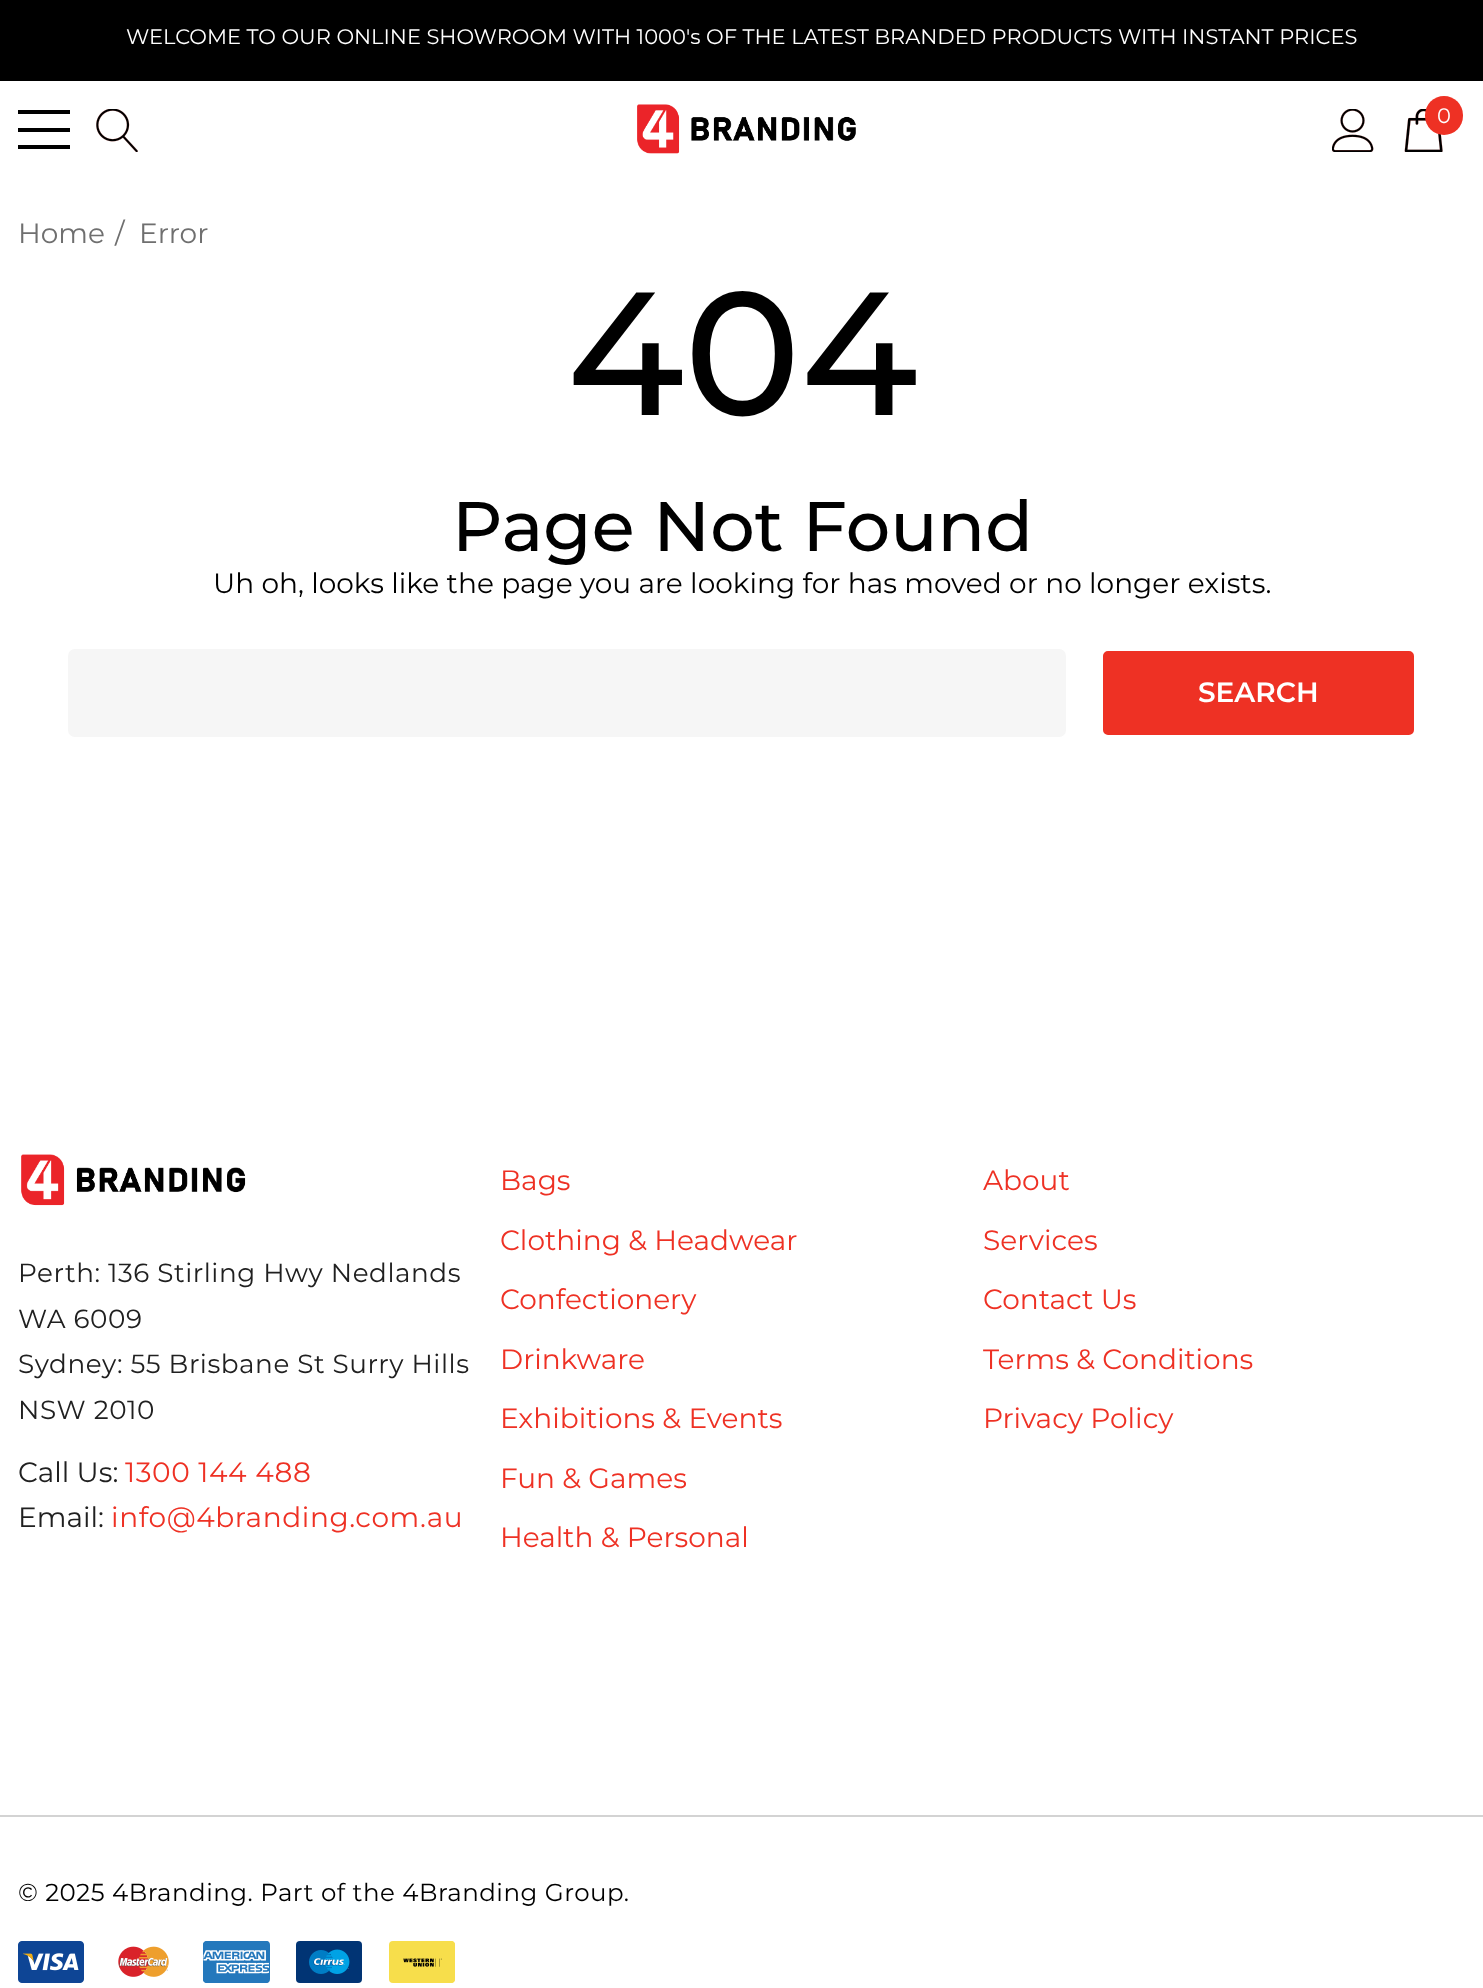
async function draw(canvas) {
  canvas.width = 1483
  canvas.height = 1988
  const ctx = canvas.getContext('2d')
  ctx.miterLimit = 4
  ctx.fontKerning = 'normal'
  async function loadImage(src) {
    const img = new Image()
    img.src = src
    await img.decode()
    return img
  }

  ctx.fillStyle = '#fff'
  ctx.fillRect(0, 0, 1483, 1988)
  ctx.fillStyle = '#000'
  ctx.fillRect(0, 0, 1483, 81)
  ctx.font = '21px Montserrat'
  ctx.fillStyle = '#fff'
  ctx.fillText('WELCOME TO OUR ONLINE SHOWROOM WITH 1000\'s OF THE LATEST BRANDED PRODUCTS WITH INSTANT PRICES', 126, 44)
  ctx.fillStyle = '#000'
  ctx.fillRect(18, 128, 52, 4)
  ctx.fillRect(18, 110, 52, 4)
  ctx.fillRect(18, 145, 52, 4)
  ctx.drawImage(await loadImage('image0.png'), 96, 109, 42, 43)
  ctx.drawImage(await loadImage('image1.png'), 637, 104, 219, 50)
  ctx.drawImage(await loadImage('image2.png'), 1332, 109, 42, 43)
  ctx.drawImage(await loadImage('image3.png'), 1404, 109, 39, 43)
  ctx.fillStyle = '#ee3124'
  ctx.beginPath()
  ctx.roundRect(1425, 96, 38, 39, 19)
  ctx.fill()
  ctx.fillStyle = '#fff'
  ctx.fillText('0', 1437, 123)
  ctx.font = '28px Montserrat'
  ctx.fillStyle = '#6f6f6f'
  ctx.fillText('Home', 18, 243)
  ctx.fillText('/', 115, 243)
  ctx.fillText('Error', 139, 243)
  ctx.font = '500 175px Montserrat'
  ctx.fillStyle = '#000'
  ctx.fillText('404', 567, 415)
  ctx.font = '500 70px Montserrat'
  ctx.fillText('Page Not Found', 452, 551)
  ctx.font = '28px Montserrat'
  ctx.fillText('Uh oh, looks like the page you are looking for has moved or no longer exists.', 213, 593)
  ctx.fillStyle = '#f6f6f6'
  ctx.beginPath()
  ctx.roundRect(68, 649, 998, 88, 7)
  ctx.fill()
  ctx.fillStyle = '#ee3124'
  ctx.beginPath()
  ctx.roundRect(1102, 650, 313, 86, 6)
  ctx.fill()
  ctx.strokeStyle = '#fff'
  ctx.lineWidth = 2
  ctx.stroke()
  ctx.font = '600 28px Montserrat'
  ctx.fillStyle = '#fff'
  ctx.fillText('SEARCH', 1198, 702)
  ctx.drawImage(await loadImage('image4.png'), 21, 1154, 225, 52)
  ctx.letterSpacing = '0.55px'
  ctx.font = '26.25px Montserrat'
  ctx.fillStyle = '#202020'
  ctx.fillText('Perth: 136 Stirling Hwy Nedlands', 18, 1282)
  ctx.fillText('WA 6009', 18, 1328)
  ctx.fillText('Sydney: 55 Brisbane St Surry Hills', 18, 1373)
  ctx.fillText('NSW 2010', 18, 1419)
  ctx.letterSpacing = '0px'
  ctx.font = '28px Montserrat'
  ctx.fillText('Call Us:', 18, 1482)
  ctx.letterSpacing = '0.6px'
  ctx.fillStyle = '#ee3124'
  ctx.fillText('1300 144 488', 125, 1482)
  ctx.letterSpacing = '0px'
  ctx.fillStyle = '#202020'
  ctx.fillText('Email:', 18, 1527)
  ctx.letterSpacing = '0.6px'
  ctx.fillStyle = '#ee3124'
  ctx.fillText('info@4branding.com.au', 111, 1527)
  ctx.letterSpacing = '0px'
  ctx.fillText('Bags', 500, 1190)
  ctx.fillText('Clothing & Headwear', 500, 1250)
  ctx.fillText('Confectionery', 500, 1309)
  ctx.fillText('Drinkware', 500, 1369)
  ctx.fillText('Exhibitions & Events', 500, 1428)
  ctx.fillText('Fun & Games', 500, 1488)
  ctx.fillText('Health & Personal', 500, 1547)
  ctx.fillText('About', 983, 1190)
  ctx.fillText('Services', 983, 1250)
  ctx.fillText('Contact Us', 983, 1309)
  ctx.fillText('Terms & Conditions', 983, 1369)
  ctx.fillText('Privacy Policy', 983, 1428)
  ctx.fillStyle = '#d3d3d3'
  ctx.fillRect(0, 1815, 1483, 2)
  ctx.letterSpacing = '0.5px'
  ctx.font = '24.5px Montserrat'
  ctx.fillStyle = '#000'
  ctx.fillText('© 2025 4Branding. Part of the 4Branding Group.', 18, 1901)
  ctx.drawImage(await loadImage('image5.png'), 18, 1941, 66, 42)
  ctx.drawImage(await loadImage('image6.png'), 110, 1941, 67, 42)
  ctx.fillStyle = '#2478bc'
  ctx.beginPath()
  ctx.roundRect(203, 1941, 67, 42, 4)
  ctx.fill()
  ctx.drawImage(await loadImage('image7.png'), 203, 1941, 66, 42)
  ctx.fillStyle = '#013474'
  ctx.beginPath()
  ctx.roundRect(296, 1941, 66, 42, 4)
  ctx.fill()
  ctx.fillStyle = '#f7de4b'
  ctx.beginPath()
  ctx.roundRect(389, 1941, 66, 42, 4)
  ctx.fill()
  ctx.drawImage(await loadImage('image8.png'), 309, 1949, 41, 25)
  ctx.drawImage(await loadImage('image9.png'), 403, 1941, 52, 42)
}

draw(document.querySelector('canvas'))
